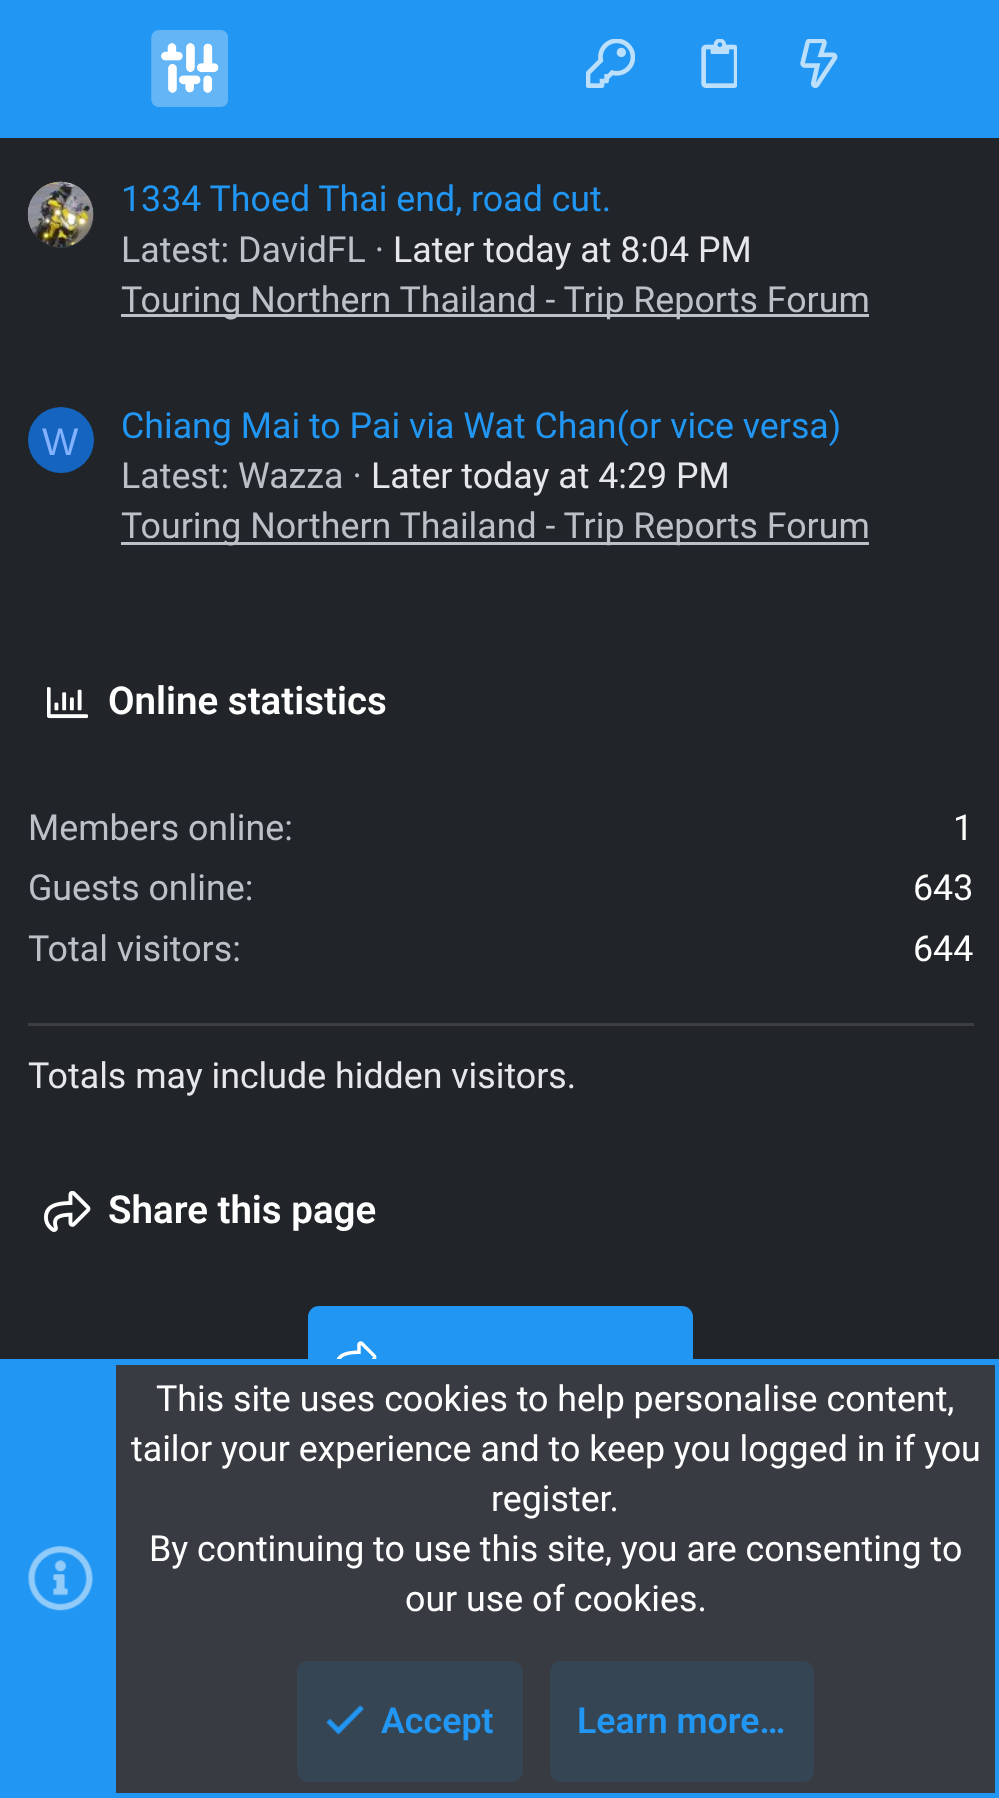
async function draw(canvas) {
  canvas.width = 999
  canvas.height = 1798
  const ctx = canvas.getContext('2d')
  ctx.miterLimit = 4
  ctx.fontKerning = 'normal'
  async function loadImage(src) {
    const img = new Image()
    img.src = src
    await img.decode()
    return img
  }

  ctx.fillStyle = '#212428'
  ctx.fillRect(0, 0, 999, 1798)
  ctx.fillStyle = '#2196f3'
  ctx.fillRect(0, 0, 999, 138)
  ctx.drawImage(await loadImage('image0.png'), 151, 30, 77, 77)
  ctx.drawImage(await loadImage('image1.png'), 586, 39, 49, 49)
  ctx.drawImage(await loadImage('image2.png'), 701, 39, 36, 49)
  ctx.drawImage(await loadImage('image3.png'), 800, 39, 38, 49)
  ctx.fillStyle = '#383c42'
  ctx.beginPath()
  ctx.arc(61, 215, 33, 0, 2 * Math.PI)
  ctx.fill()
  ctx.drawImage(await loadImage('image4.png'), 27, 181, 67, 66)
  ctx.font = '35.75px Roboto'
  ctx.fillStyle = '#2196f3'
  ctx.fillText('1334 Thoed Thai end, road cut.', 121, 211)
  ctx.fillStyle = '#bcc0c7'
  ctx.fillText('Latest: DavidFL ·', 121, 262)
  ctx.fillStyle = '#e6e7ea'
  ctx.fillText('Later today at 8:04 PM', 393, 262)
  ctx.fillStyle = '#bcc0c7'
  ctx.fillRect(121, 314, 748, 3)
  ctx.fillText('Touring Northern Thailand - Trip Reports Forum', 121, 312)
  ctx.fillStyle = '#1565c0'
  ctx.beginPath()
  ctx.arc(61, 440, 33, 0, 2 * Math.PI)
  ctx.fill()
  ctx.font = '38.5px Liberation Sans'
  ctx.fillStyle = '#82b1ff'
  ctx.fillText('W', 42, 455)
  ctx.font = '35.75px Roboto'
  ctx.fillStyle = '#2196f3'
  ctx.fillText('Chiang Mai to Pai via Wat Chan(or vice versa)', 121, 438)
  ctx.fillStyle = '#bcc0c7'
  ctx.fillText('Latest: Wazza ·', 121, 488)
  ctx.fillStyle = '#e6e7ea'
  ctx.fillText('Later today at 4:29 PM', 371, 488)
  ctx.fillStyle = '#bcc0c7'
  ctx.fillRect(121, 542, 748, 3)
  ctx.fillText('Touring Northern Thailand - Trip Reports Forum', 121, 538)
  ctx.drawImage(await loadImage('image5.png'), 47, 687, 41, 32)
  ctx.font = '600 38.5px Roboto'
  ctx.fillStyle = '#fff'
  ctx.fillText('Online statistics', 108, 714)
  ctx.font = '35.75px Roboto'
  ctx.fillStyle = '#bcc0c7'
  ctx.fillText('Members online:', 28, 840)
  ctx.fillStyle = '#fff'
  ctx.fillText('1', 953, 840)
  ctx.fillStyle = '#bcc0c7'
  ctx.fillText('Guests online:', 28, 900)
  ctx.fillStyle = '#fff'
  ctx.fillText('643', 913, 900)
  ctx.fillStyle = '#bcc0c7'
  ctx.fillText('Total visitors:', 28, 961)
  ctx.fillStyle = '#fff'
  ctx.fillText('644', 913, 961)
  ctx.fillStyle = '#3c3e42'
  ctx.fillRect(28, 1023, 946, 3)
  ctx.fillStyle = '#e6e7ea'
  ctx.fillText('Totals may include hidden visitors.', 28, 1088)
  ctx.drawImage(await loadImage('image6.png'), 44, 1191, 47, 41)
  ctx.font = '600 38.5px Roboto'
  ctx.fillStyle = '#fff'
  ctx.fillText('Share this page', 108, 1223)
  ctx.fillStyle = '#2196f3'
  ctx.beginPath()
  ctx.roundRect(308, 1306, 385, 99, 11)
  ctx.fill()
  ctx.drawImage(await loadImage('image7.png'), 336, 1341, 41, 18)
  ctx.fillStyle = '#383c42'
  ctx.fillRect(116, 1365, 879, 428)
  ctx.strokeStyle = '#2196f3'
  ctx.lineWidth = 6
  ctx.strokeRect(3, 1362, 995, 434)
  ctx.fillStyle = '#2196f3'
  ctx.fillRect(6, 1365, 110, 428)
  ctx.drawImage(await loadImage('image8.png'), 28, 1546, 65, 65)
  ctx.font = '35.75px Roboto'
  ctx.fillStyle = '#fff'
  ctx.fillText('This site uses cookies to help personalise content,', 156, 1411)
  ctx.fillText('tailor your experience and to keep you logged in if you', 131, 1461)
  ctx.fillText('register.', 491, 1511)
  ctx.fillText('By continuing to use this site, you are consenting to', 149, 1561)
  ctx.fillText('our use of cookies.', 405, 1611)
  ctx.fillStyle = '#364554'
  ctx.beginPath()
  ctx.roundRect(297, 1661, 226, 121, 11)
  ctx.fill()
  ctx.drawImage(await loadImage('image9.png'), 326, 1705, 38, 30)
  ctx.font = '600 35.75px Roboto'
  ctx.fillStyle = '#2196f3'
  ctx.fillText('Accept', 381, 1733)
  ctx.fillStyle = '#364554'
  ctx.beginPath()
  ctx.roundRect(550, 1661, 264, 121, 11)
  ctx.fill()
  ctx.fillStyle = '#2196f3'
  ctx.fillText('Learn more…', 577, 1733)
}

draw(document.querySelector('canvas'))
